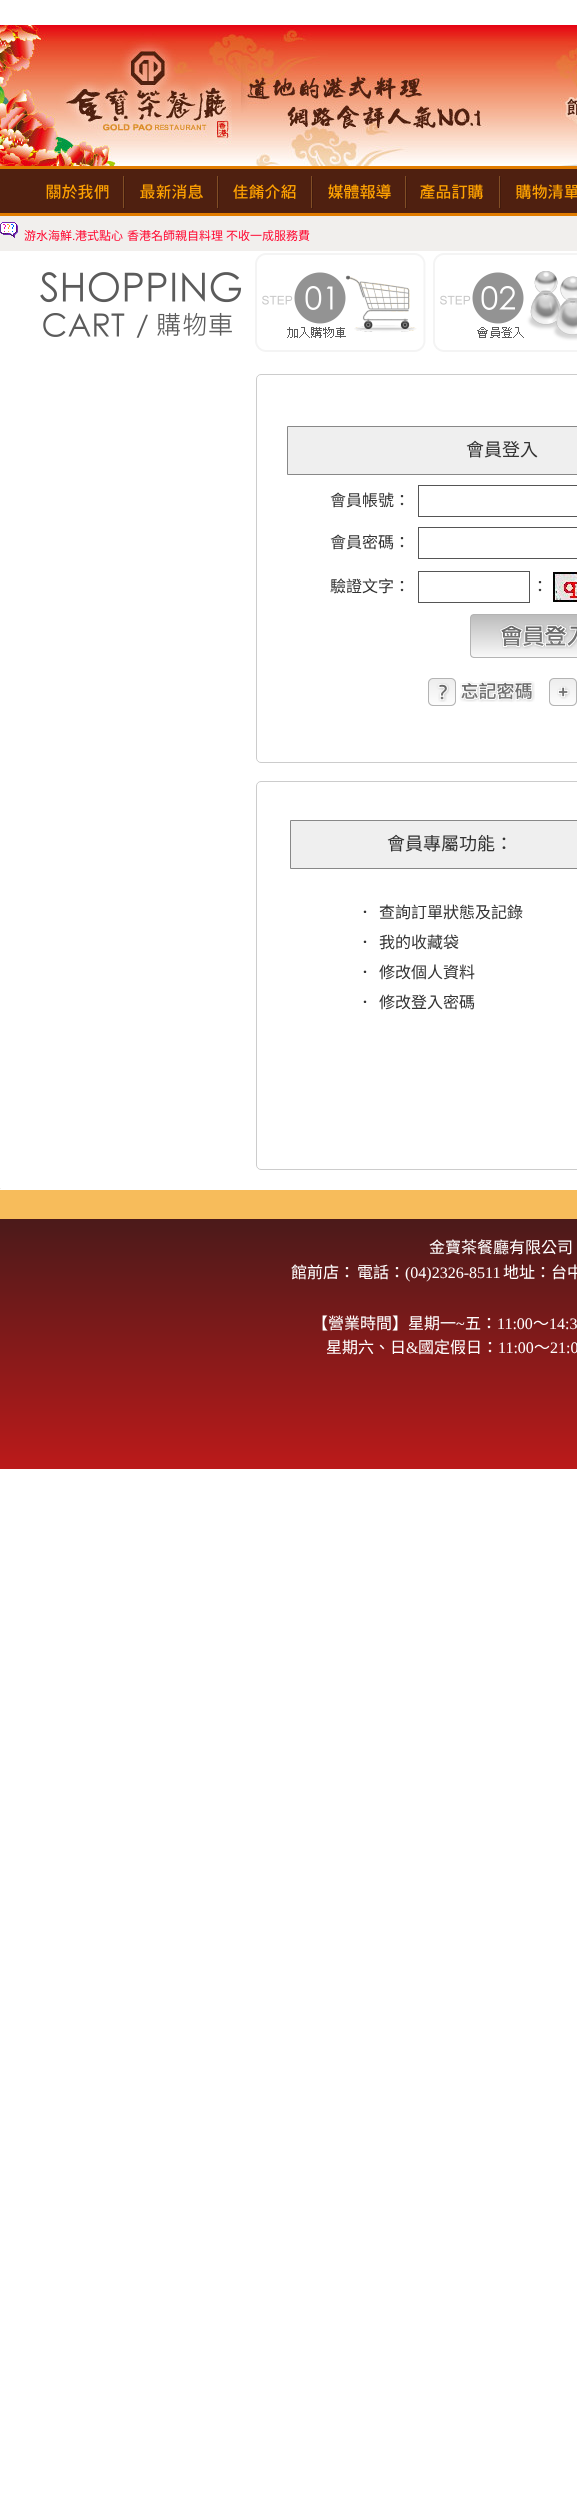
async function draw(canvas) {
  canvas.width = 577
  canvas.height = 2511
  const ctx = canvas.getContext('2d')
  ctx.miterLimit = 4
  ctx.fontKerning = 'normal'
  async function loadImage(src) {
    const img = new Image()
    img.src = src
    await img.decode()
    return img
  }

  ctx.fillStyle = '#fff'
  ctx.fillRect(0, 0, 577, 2511)
  ctx.drawImage(await loadImage('image0.png'), 0, 25, 577, 141)
  ctx.drawImage(await loadImage('image1.png'), 0, 166, 35, 50)
  ctx.drawImage(await loadImage('image2.png'), 35, 166, 88, 50)
  ctx.drawImage(await loadImage('image3.png'), 123, 166, 94, 50)
  ctx.drawImage(await loadImage('image4.png'), 217, 166, 94, 50)
  ctx.drawImage(await loadImage('image5.png'), 311, 166, 94, 50)
  ctx.drawImage(await loadImage('image6.png'), 405, 166, 94, 50)
  ctx.drawImage(await loadImage('image7.png'), 499, 166, 78, 50)
  ctx.fillStyle = '#f1efed'
  ctx.fillRect(0, 216, 577, 35)
  ctx.drawImage(await loadImage('image8.png'), 0, 222, 18, 16)
  ctx.font = '12px Noto Sans CJK TC'
  ctx.fillStyle = '#ff0831'
  ctx.fillText('游水海鮮', 24, 240)
  ctx.font = '12px Liberation Sans'
  ctx.fillText('.', 72, 240)
  ctx.font = '12px Noto Sans CJK TC'
  ctx.fillText('港式點心', 75, 240)
  ctx.fillText('香港名師親自料理', 127, 240)
  ctx.fillText('不收一成服務費', 226, 240)
  ctx.drawImage(await loadImage('image9.png'), 40, 253, 537, 99)
  ctx.beginPath()
  ctx.roundRect(256.5, 374.5, 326, 388, 4.5)
  ctx.strokeStyle = '#ccc'
  ctx.stroke()
  ctx.fillStyle = '#efefef'
  ctx.beginPath()
  ctx.rect(287.5, 426.5, 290, 48)
  ctx.fill()
  ctx.strokeStyle = '#888'
  ctx.stroke()
  ctx.font = '18px Noto Sans CJK TC'
  ctx.fillStyle = '#333'
  ctx.fillText('會員登入', 466, 456)
  ctx.font = '16px Noto Sans CJK TC'
  ctx.fillText('會員帳號：', 330, 506)
  ctx.strokeStyle = '#555'
  ctx.strokeRect(418.5, 485.5, 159, 31)
  ctx.fillText('會員密碼：', 330, 548)
  ctx.strokeRect(418.5, 527.5, 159, 31)
  ctx.fillText('驗證文字：', 330, 592)
  ctx.strokeRect(418.5, 571.5, 111, 31)
  ctx.fillText('：', 532, 592)
  ctx.drawImage(await loadImage('image10.png'), 553, 572, 24, 30)
  ctx.drawImage(await loadImage('image11.png'), 470, 614, 107, 44)
  ctx.drawImage(await loadImage('image12.png'), 428, 678, 107, 28)
  ctx.drawImage(await loadImage('image13.png'), 549, 678, 28, 28)
  ctx.beginPath()
  ctx.roundRect(256.5, 781.5, 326, 388, 4.5)
  ctx.strokeStyle = '#ccc'
  ctx.stroke()
  ctx.fillStyle = '#efefef'
  ctx.beginPath()
  ctx.rect(290.5, 820.5, 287, 48)
  ctx.fill()
  ctx.strokeStyle = '#888'
  ctx.stroke()
  ctx.font = '18px Noto Sans CJK TC'
  ctx.fillStyle = '#333'
  ctx.fillText('會員專屬功能：', 387, 850)
  ctx.font = '16px Noto Sans CJK TC'
  ctx.fillText('．', 357, 918)
  ctx.fillText('查詢訂單狀態及記錄', 379, 918)
  ctx.fillText('．', 357, 948)
  ctx.fillText('我的收藏袋', 379, 948)
  ctx.fillText('．', 357, 978)
  ctx.fillText('修改個人資料', 379, 978)
  ctx.fillText('．', 357, 1008)
  ctx.fillText('修改登入密碼', 379, 1008)
  ctx.fillStyle = '#f1efed'
  ctx.fillRect(0, 1188, 1, 1)
  ctx.fillStyle = '#f7bc5b'
  ctx.fillRect(0, 1190, 577, 29)
  ctx.drawImage(await loadImage('image14.png'), 0, 1219, 577, 250)
  ctx.fillStyle = '#fff'
  ctx.fillText('金寶茶餐廳有限公司', 429, 1253)
  ctx.fillText('館前店：', 291, 1278)
  ctx.fillText('電話：', 357, 1278)
  ctx.font = '16px Liberation Serif'
  ctx.fillText('(04)2326-8511', 405, 1278)
  ctx.font = '16px Noto Sans CJK TC'
  ctx.fillText('地址：台中', 503, 1278)
  ctx.fillText('【營業時間】星期一', 312, 1329)
  ctx.font = '16px Liberation Serif'
  ctx.fillText('~', 456, 1329)
  ctx.font = '16px Noto Sans CJK TC'
  ctx.fillText('五：', 465, 1329)
  ctx.font = '16px Liberation Serif'
  ctx.fillText('11:00', 497, 1329)
  ctx.font = '16px Noto Sans CJK TC'
  ctx.fillText('～', 533, 1329)
  ctx.font = '16px Liberation Serif'
  ctx.fillText('14:3', 549, 1329)
  ctx.font = '16px Noto Sans CJK TC'
  ctx.fillText('星期六、日', 326, 1353)
  ctx.font = '16px Liberation Serif'
  ctx.fillText('&', 406, 1353)
  ctx.font = '16px Noto Sans CJK TC'
  ctx.fillText('國定假日：', 418, 1353)
  ctx.font = '16px Liberation Serif'
  ctx.fillText('11:00', 498, 1353)
  ctx.font = '16px Noto Sans CJK TC'
  ctx.fillText('～', 534, 1353)
  ctx.font = '16px Liberation Serif'
  ctx.fillText('21:0', 550, 1353)
}

draw(document.querySelector('canvas'))
